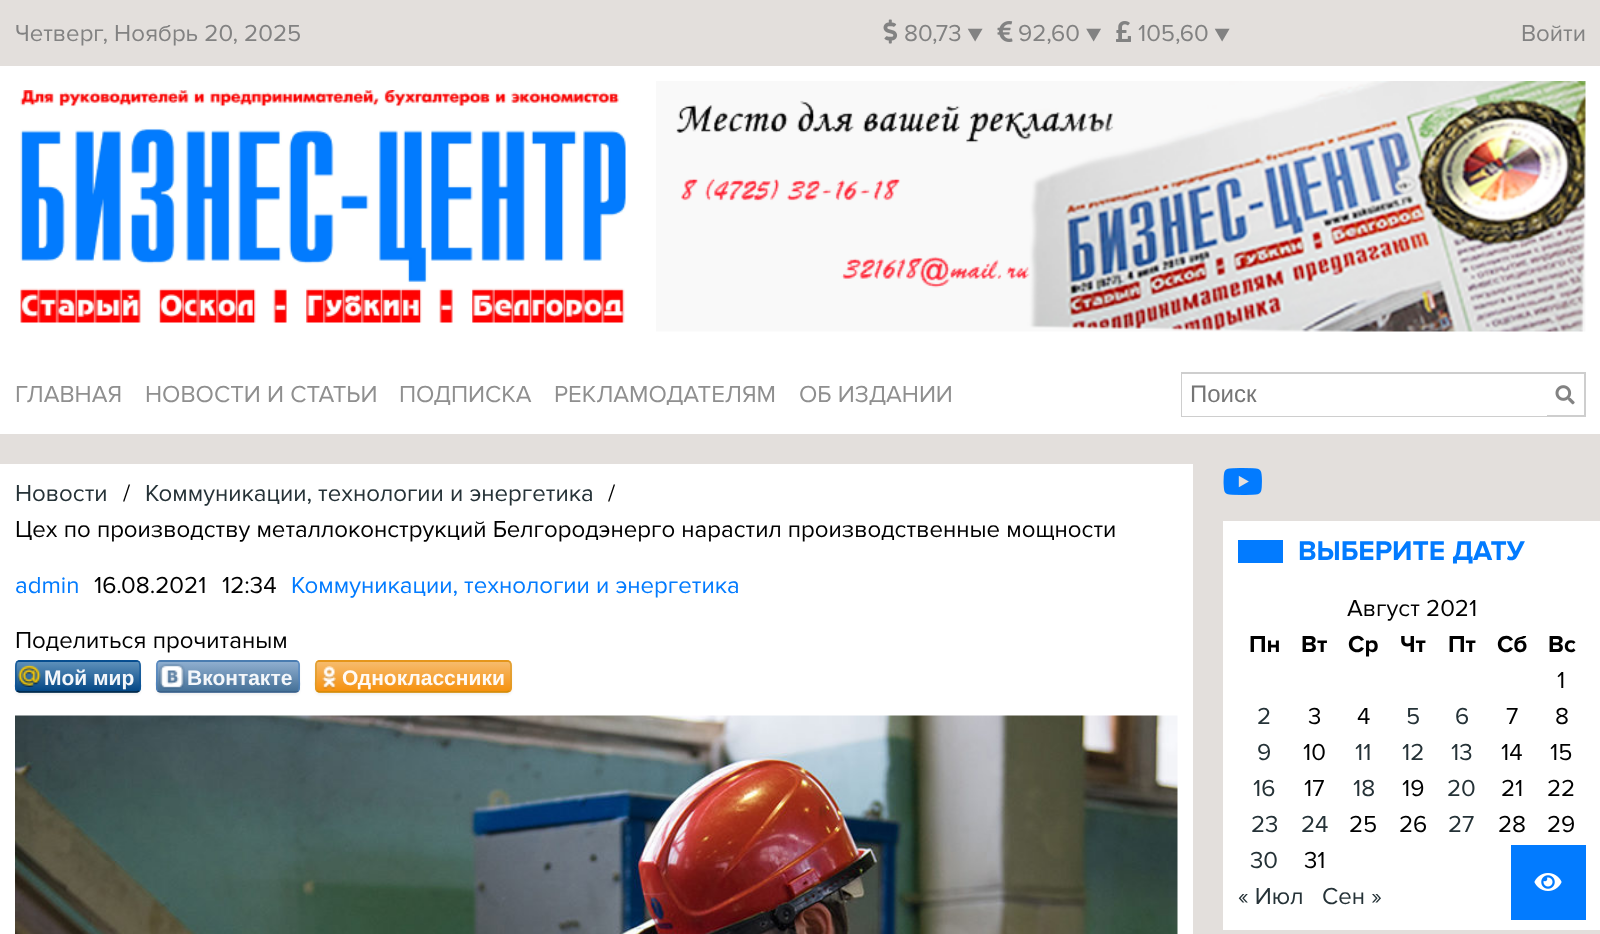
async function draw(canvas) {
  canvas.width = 1600
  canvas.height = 934
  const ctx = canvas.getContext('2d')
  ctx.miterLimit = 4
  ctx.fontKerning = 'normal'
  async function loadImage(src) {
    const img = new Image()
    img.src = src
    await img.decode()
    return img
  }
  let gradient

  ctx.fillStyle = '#e3dfdc'
  ctx.fillRect(0, 0, 1600, 934)
  ctx.fillStyle = '#fff'
  ctx.fillRect(0, 432, 1600, 2)
  ctx.font = '24px Proxima Nova'
  ctx.fillStyle = '#828282'
  ctx.fillText('Четверг, Ноябрь 20, 2025', 15, 41)
  ctx.drawImage(await loadImage('image0.png'), 883, 19, 15, 25)
  ctx.fillText('80,73 ▼', 904, 41)
  ctx.drawImage(await loadImage('image1.png'), 997, 21, 16, 21)
  ctx.fillText('92,60 ▼', 1018, 41)
  ctx.drawImage(await loadImage('image2.png'), 1116, 21, 15, 21)
  ctx.fillText('105,60 ▼', 1138, 41)
  ctx.fillText('Войти', 1521, 41)
  ctx.fillStyle = '#fff'
  ctx.fillRect(0, 66, 1600, 366)
  ctx.drawImage(await loadImage('image3.png'), 20, 90, 606, 233)
  ctx.drawImage(await loadImage('image4.png'), 656, 81, 930, 251)
  ctx.fillStyle = '#8f8f8f'
  ctx.fillText('ГЛАВНАЯ', 15, 402)
  ctx.fillText('НОВОСТИ И СТАТЬИ', 145, 402)
  ctx.fillText('ПОДПИСКА', 399, 402)
  ctx.fillText('РЕКЛАМОДАТЕЛЯМ', 554, 402)
  ctx.fillText('ОБ ИЗДАНИИ', 799, 402)
  ctx.strokeStyle = '#cecece'
  ctx.lineWidth = 2
  ctx.strokeRect(1182, 373, 403, 43)
  ctx.fillStyle = '#fff'
  ctx.fillRect(1182, 374, 365, 42)
  ctx.font = '24px Liberation Sans'
  ctx.fillStyle = '#757575'
  ctx.fillText('Поиск', 1190, 402)
  ctx.drawImage(await loadImage('image5.png'), 1555, 385, 20, 20)
  ctx.fillStyle = '#fff'
  ctx.fillRect(0, 464, 1193, 470)
  ctx.font = '24px Proxima Nova'
  ctx.fillStyle = '#253237'
  ctx.fillText('Новости', 15, 501)
  ctx.fillStyle = '#000'
  ctx.fillText('/', 123, 501)
  ctx.fillStyle = '#253237'
  ctx.fillText('Коммуникации, технологии и энергетика', 145, 501)
  ctx.fillStyle = '#000'
  ctx.fillText('/', 608, 501)
  ctx.fillText('Цех по производству металлоконструкций Белгородэнерго нарастил производственные мощности', 15, 537)
  ctx.fillStyle = '#027bff'
  ctx.fillText('admin', 15, 593)
  ctx.fillStyle = '#000'
  ctx.fillText('16.08.2021', 94, 593)
  ctx.fillText('12:34', 222, 593)
  ctx.fillStyle = '#027bff'
  ctx.fillText('Коммуникации, технологии и энергетика', 291, 593)
  ctx.fillStyle = '#000'
  ctx.fillText('Поделиться прочитаным', 15, 648)
  ctx.fillStyle = '#0000000d'
  ctx.filter = 'blur(1px)'
  ctx.beginPath()
  ctx.roundRect(15, 662, 126, 33, 5)
  ctx.fill()
  ctx.filter = 'none'
  ctx.save()
  ctx.beginPath()
  ctx.roundRect(15, 660, 126, 33, 5)
  ctx.clip()
  gradient = ctx.createLinearGradient(78, 632, 78, 662)
  gradient.addColorStop(0, '#5d90ba')
  gradient.addColorStop(1, '#004584')
  ctx.fillStyle = gradient
  ctx.fillRect(15, 660, 126, 2)
  gradient = ctx.createLinearGradient(78, 662, 78, 692)
  gradient.addColorStop(0, '#5d90ba')
  gradient.addColorStop(1, '#004584')
  ctx.fillStyle = gradient
  ctx.fillRect(15, 662, 126, 30)
  gradient = ctx.createLinearGradient(78, 692, 78, 722)
  gradient.addColorStop(0, '#5d90ba')
  gradient.addColorStop(1, '#004584')
  ctx.fillStyle = gradient
  ctx.fillRect(15, 692, 126, 1)
  ctx.restore()
  ctx.beginPath()
  ctx.moveTo(139, 691)
  ctx.lineTo(137, 692)
  ctx.lineTo(39, 692)
  ctx.lineTo(19.5, 692)
  ctx.lineTo(17, 691)
  ctx.strokeStyle = '#031b30cc'
  ctx.lineWidth = 1.5
  ctx.stroke()
  ctx.beginPath()
  ctx.moveTo(17, 691)
  ctx.bezierCurveTo(14.5, 688.5, 16, 683.5, 16, 680.5)
  ctx.bezierCurveTo(16, 656, 12, 661, 39, 661)
  ctx.lineTo(117, 661)
  ctx.bezierCurveTo(144, 661, 140, 656, 140, 680.5)
  ctx.bezierCurveTo(140, 683.5, 141.5, 688.5, 139, 691)
  ctx.strokeStyle = '#0b5499cc'
  ctx.stroke()
  ctx.drawImage(await loadImage('image6.png'), 18, 664, 23, 23)
  ctx.font = 'bold 21px Liberation Sans'
  ctx.fillStyle = '#f4f7fa'
  ctx.fillText('Мой мир', 44, 685)
  ctx.fillStyle = '#0000000d'
  ctx.filter = 'blur(1px)'
  ctx.beginPath()
  ctx.roundRect(156, 662, 144, 33, 5)
  ctx.fill()
  ctx.filter = 'none'
  ctx.save()
  ctx.beginPath()
  ctx.roundRect(156, 660, 144, 33, 5)
  ctx.clip()
  gradient = ctx.createLinearGradient(228, 632, 228, 662)
  gradient.addColorStop(0, '#8faecf')
  gradient.addColorStop(1, '#436f96')
  ctx.fillStyle = gradient
  ctx.fillRect(156, 660, 144, 2)
  gradient = ctx.createLinearGradient(228, 662, 228, 692)
  gradient.addColorStop(0, '#8faecf')
  gradient.addColorStop(1, '#436f96')
  ctx.fillStyle = gradient
  ctx.fillRect(156, 662, 144, 30)
  gradient = ctx.createLinearGradient(228, 692, 228, 722)
  gradient.addColorStop(0, '#8faecf')
  gradient.addColorStop(1, '#436f96')
  ctx.fillStyle = gradient
  ctx.fillRect(156, 692, 144, 1)
  ctx.restore()
  ctx.beginPath()
  ctx.moveTo(298, 691)
  ctx.bezierCurveTo(297.5, 692, 296.5, 692, 295.5, 692)
  ctx.lineTo(160.5, 692)
  ctx.bezierCurveTo(159.5, 692, 158.5, 692, 158, 691)
  ctx.strokeStyle = '#34587fcc'
  ctx.stroke()
  ctx.beginPath()
  ctx.moveTo(158, 691)
  ctx.bezierCurveTo(155.5, 689, 157, 679.5, 157, 676.5)
  ctx.lineTo(157, 668.5)
  ctx.bezierCurveTo(157, 665.5, 156, 661, 160.5, 661)
  ctx.lineTo(295.5, 661)
  ctx.bezierCurveTo(300, 661, 299, 665.5, 299, 668.5)
  ctx.lineTo(299, 676.5)
  ctx.bezierCurveTo(299, 679.5, 300.5, 689, 298, 691)
  ctx.strokeStyle = '#4e83c1cc'
  ctx.stroke()
  ctx.drawImage(await loadImage('image7.png'), 159, 664, 26, 25)
  ctx.fillStyle = '#f4f7fa'
  ctx.fillText('Вконтакте', 187, 685)
  ctx.fillStyle = '#0000000d'
  ctx.filter = 'blur(1px)'
  ctx.beginPath()
  ctx.roundRect(315, 662, 197, 33, 5)
  ctx.fill()
  ctx.filter = 'none'
  ctx.save()
  ctx.beginPath()
  ctx.roundRect(315, 660, 197, 33, 5)
  ctx.clip()
  gradient = ctx.createLinearGradient(413, 632, 413, 662)
  gradient.addColorStop(0, '#f6bb6d')
  gradient.addColorStop(1, '#f6900b')
  ctx.fillStyle = gradient
  ctx.fillRect(315, 660, 197, 2)
  gradient = ctx.createLinearGradient(413, 662, 413, 692)
  gradient.addColorStop(0, '#f6bb6d')
  gradient.addColorStop(1, '#f6900b')
  ctx.fillStyle = gradient
  ctx.fillRect(315, 662, 197, 30)
  gradient = ctx.createLinearGradient(413, 692, 413, 722)
  gradient.addColorStop(0, '#f6bb6d')
  gradient.addColorStop(1, '#f6900b')
  ctx.fillStyle = gradient
  ctx.fillRect(315, 692, 197, 1)
  ctx.restore()
  ctx.beginPath()
  ctx.moveTo(509.5, 691)
  ctx.lineTo(507, 692)
  ctx.lineTo(319, 692)
  ctx.lineTo(317, 691)
  ctx.strokeStyle = '#c58907cc'
  ctx.stroke()
  ctx.beginPath()
  ctx.moveTo(317, 691)
  ctx.bezierCurveTo(314.5, 689, 316, 679.5, 316, 676.5)
  ctx.lineTo(316, 668.5)
  ctx.bezierCurveTo(316, 665.5, 315, 661, 319.5, 661)
  ctx.lineTo(507, 661)
  ctx.bezierCurveTo(511.5, 661, 511, 665.5, 511, 668.5)
  ctx.lineTo(511, 676.5)
  ctx.bezierCurveTo(511, 679.5, 512, 689, 509.5, 691)
  ctx.strokeStyle = '#d99a26cc'
  ctx.stroke()
  ctx.drawImage(await loadImage('image8.png'), 322, 666, 14, 23)
  ctx.fillStyle = '#fffaf5'
  ctx.fillText('Одноклассники', 342, 685)
  ctx.drawImage(await loadImage('image9.png'), 15, 715, 1163, 219)
  ctx.drawImage(await loadImage('image10.png'), 1223, 468, 39, 27)
  ctx.fillStyle = '#fff'
  ctx.fillRect(1223, 521, 377, 409)
  ctx.fillStyle = '#027bff'
  ctx.fillRect(1238, 540, 45, 23)
  ctx.font = 'bold 28px Proxima Nova'
  ctx.fillText('ВЫБЕРИТЕ ДАТУ', 1298, 560)
  ctx.font = '24px Proxima Nova'
  ctx.fillStyle = '#000'
  ctx.fillText('Август 2021', 1347, 616)
  ctx.font = 'bold 24px Proxima Nova'
  ctx.fillText('Пн', 1249, 652)
  ctx.fillText('Вт', 1301, 652)
  ctx.fillText('Ср', 1348, 652)
  ctx.fillText('Чт', 1400, 652)
  ctx.fillText('Пт', 1448, 652)
  ctx.fillText('Сб', 1497, 652)
  ctx.fillText('Вс', 1548, 652)
  ctx.font = '24px Proxima Nova'
  ctx.fillText('1', 1557, 688)
  ctx.fillStyle = '#253237'
  ctx.fillText('2', 1257, 724)
  ctx.fillStyle = '#000'
  ctx.fillText('3', 1308, 724)
  ctx.fillText('4', 1357, 724)
  ctx.fillStyle = '#253237'
  ctx.fillText('5', 1406, 724)
  ctx.fillText('6', 1455, 724)
  ctx.fillStyle = '#000'
  ctx.fillText('7', 1506, 724)
  ctx.fillText('8', 1555, 724)
  ctx.fillStyle = '#253237'
  ctx.fillText('9', 1257, 760)
  ctx.fillStyle = '#000'
  ctx.fillText('10', 1303, 760)
  ctx.fillStyle = '#253237'
  ctx.fillText('11', 1355, 760)
  ctx.fillText('12', 1402, 760)
  ctx.fillText('13', 1451, 760)
  ctx.fillStyle = '#000'
  ctx.fillText('14', 1501, 760)
  ctx.fillText('15', 1550, 760)
  ctx.fillStyle = '#253237'
  ctx.fillText('16', 1253, 796)
  ctx.fillStyle = '#000'
  ctx.fillText('17', 1304, 796)
  ctx.fillStyle = '#253237'
  ctx.fillText('18', 1353, 796)
  ctx.fillStyle = '#000'
  ctx.fillText('19', 1402, 796)
  ctx.fillStyle = '#253237'
  ctx.fillText('20', 1447, 796)
  ctx.fillStyle = '#000'
  ctx.fillText('21', 1501, 796)
  ctx.fillText('22', 1547, 796)
  ctx.fillStyle = '#253237'
  ctx.fillText('23', 1251, 832)
  ctx.fillText('24', 1301, 832)
  ctx.fillStyle = '#000'
  ctx.fillText('25', 1349, 832)
  ctx.fillText('26', 1399, 832)
  ctx.fillStyle = '#253237'
  ctx.fillText('27', 1448, 832)
  ctx.fillStyle = '#000'
  ctx.fillText('28', 1498, 832)
  ctx.fillText('29', 1547, 832)
  ctx.fillStyle = '#253237'
  ctx.fillText('30', 1250, 868)
  ctx.fillStyle = '#000'
  ctx.fillText('31', 1304, 868)
  ctx.fillStyle = '#253237'
  ctx.fillText('« Июл', 1238, 904)
  ctx.fillText('Сен »', 1322, 904)
  ctx.fillStyle = '#027bff'
  ctx.fillRect(1511, 845, 75, 75)
  ctx.drawImage(await loadImage('image11.png'), 1534, 873, 28, 18)
}

draw(document.querySelector('canvas'))
